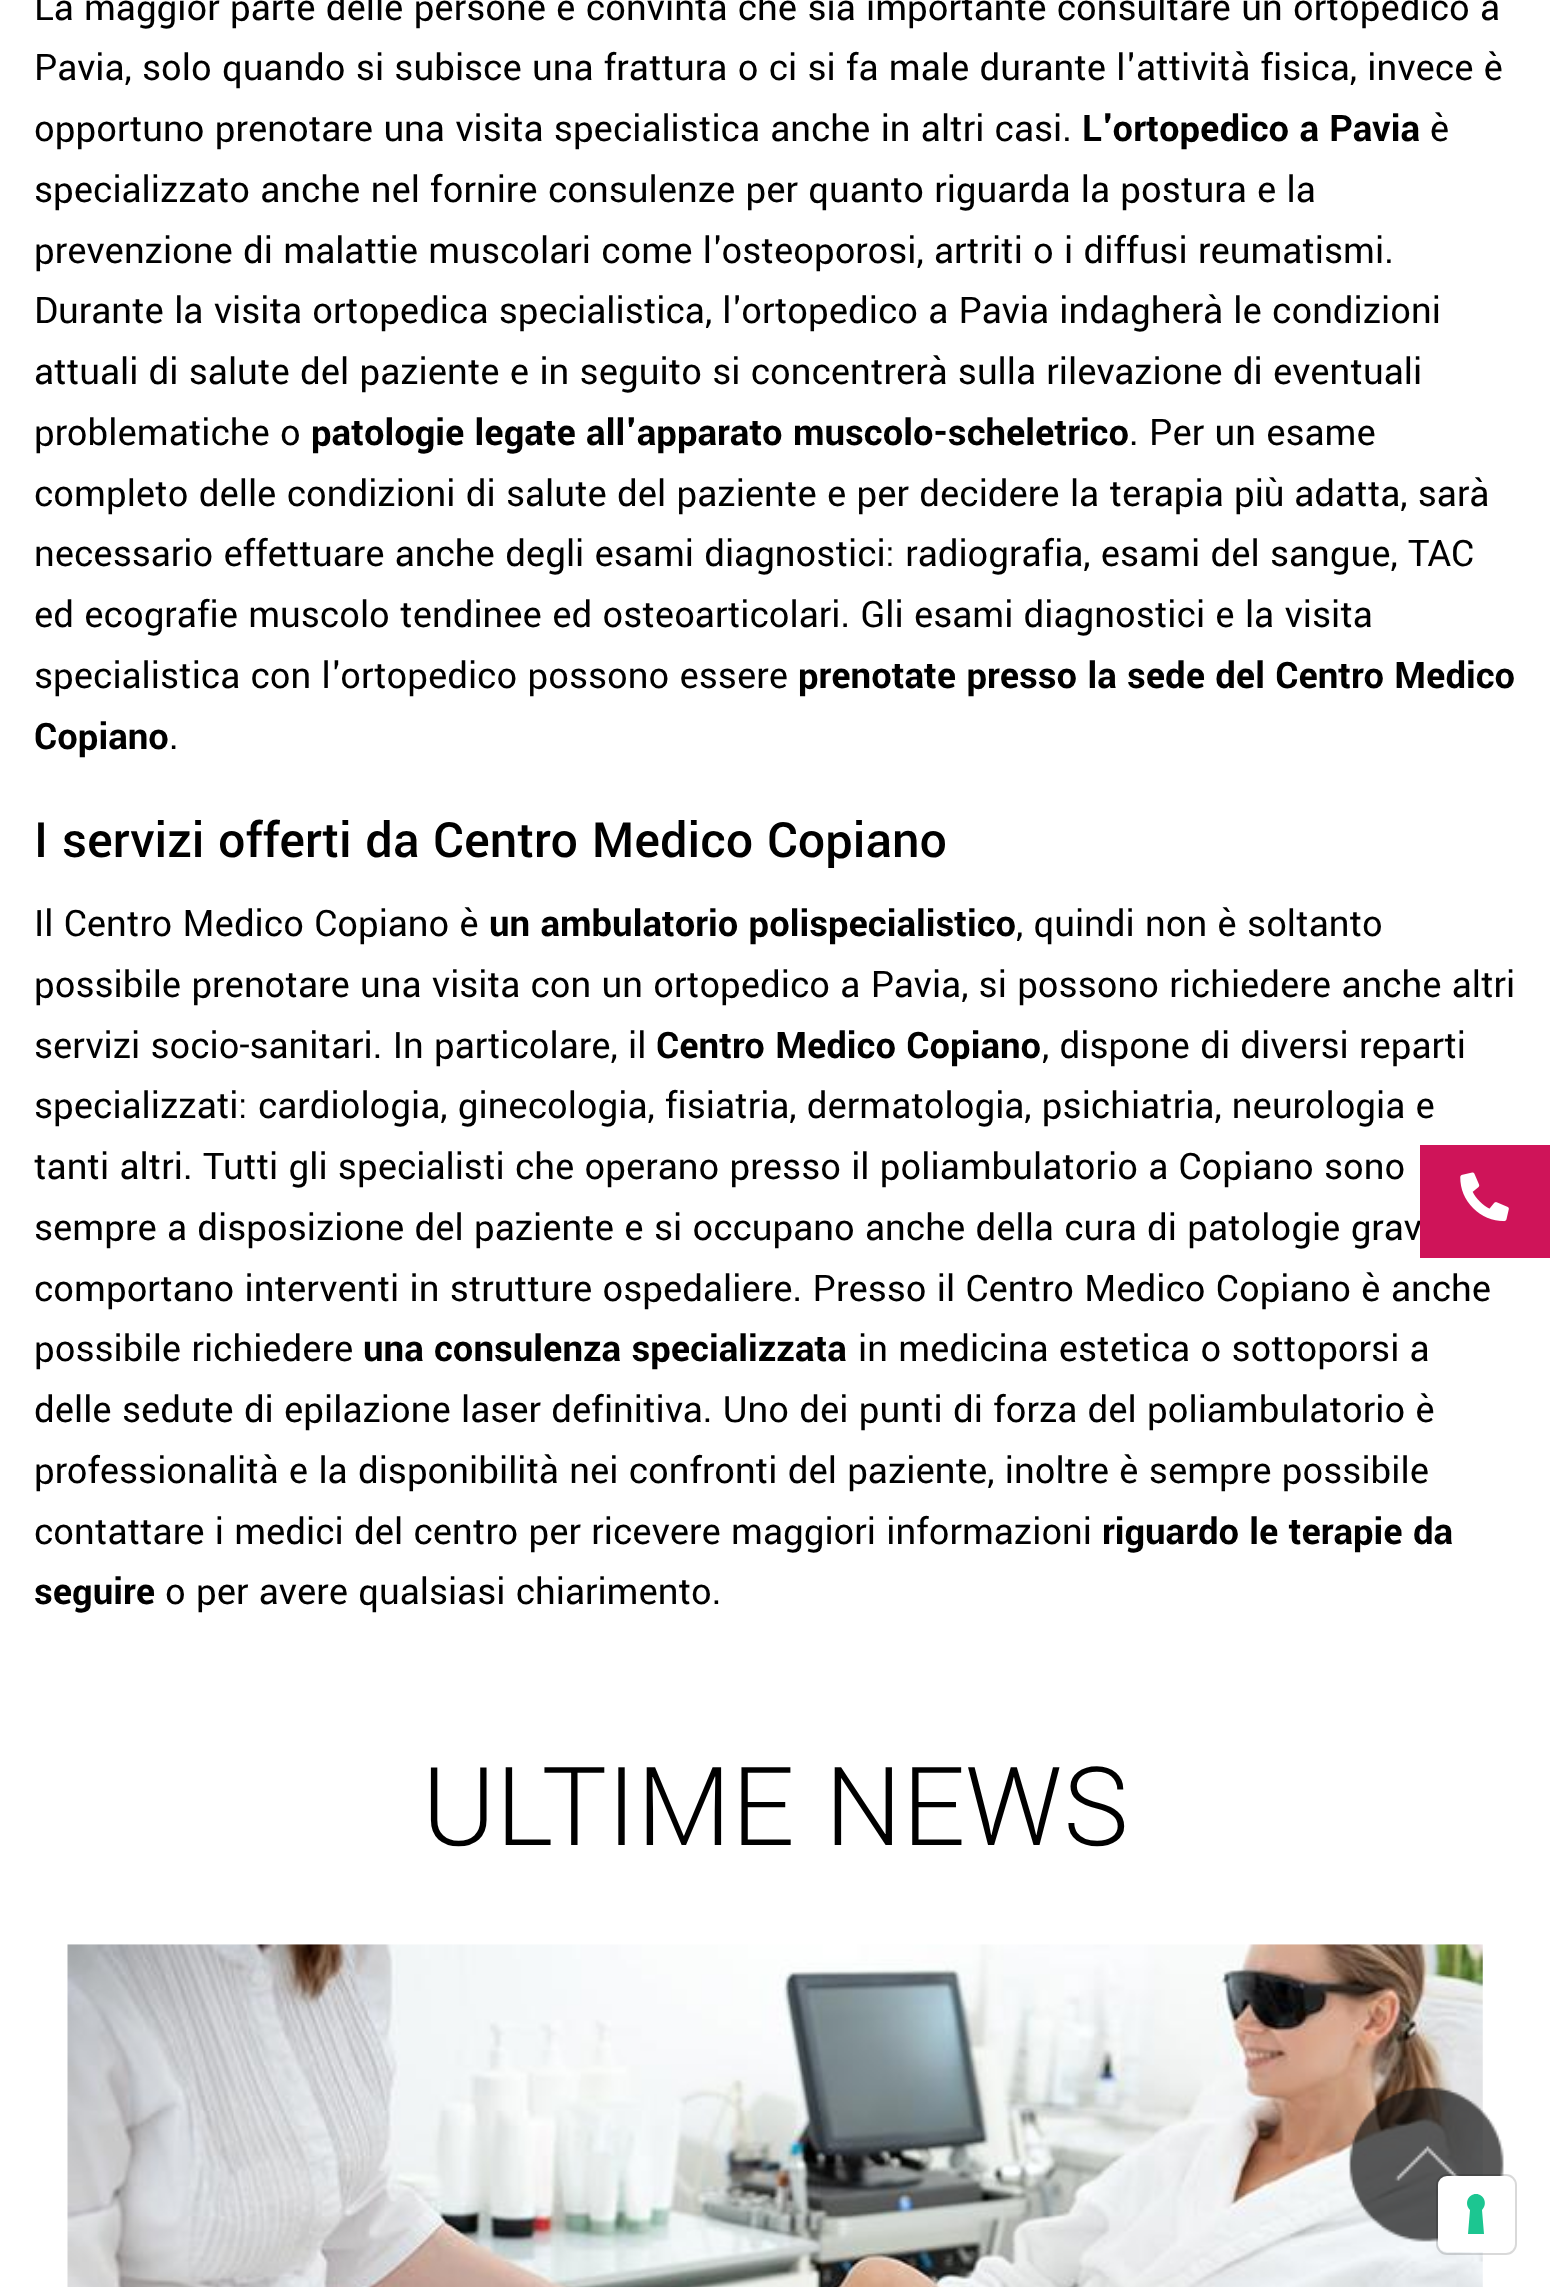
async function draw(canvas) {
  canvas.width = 1550
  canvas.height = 2287
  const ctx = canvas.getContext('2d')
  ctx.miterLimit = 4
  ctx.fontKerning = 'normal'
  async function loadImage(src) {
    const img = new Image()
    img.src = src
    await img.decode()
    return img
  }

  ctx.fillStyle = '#fff'
  ctx.fillRect(0, 0, 1550, 2287)
  ctx.font = '40.5px Yantramanav'
  ctx.fillStyle = '#000'
  ctx.fillText('La maggior parte delle persone è convinta che sia importante consultare un ortopedico a', 34, 20)
  ctx.fillText('Pavia, solo quando si subisce una frattura o ci si fa male durante l\'attività fisica, invece è', 34, 80)
  ctx.fillText('opportuno prenotare una visita specialistica anche in altri casi.', 34, 141)
  ctx.font = 'bold 40.5px Yantramanav'
  ctx.fillText('L\'ortopedico a Pavia', 1082, 141)
  ctx.font = '40.5px Yantramanav'
  ctx.fillText('è', 1430, 141)
  ctx.fillText('specializzato anche nel fornire consulenze per quanto riguarda la postura e la', 34, 202)
  ctx.fillText('prevenzione di malattie muscolari come l\'osteoporosi, artriti o i diffusi reumatismi.', 34, 263)
  ctx.fillText('Durante la visita ortopedica specialistica, l\'ortopedico a Pavia indagherà le condizioni', 34, 323)
  ctx.fillText('attuali di salute del paziente e in seguito si concentrerà sulla rilevazione di eventuali', 34, 384)
  ctx.fillText('problematiche o', 34, 445)
  ctx.font = 'bold 40.5px Yantramanav'
  ctx.fillText('patologie legate all\'apparato muscolo-scheletrico', 311, 445)
  ctx.font = '40.5px Yantramanav'
  ctx.fillText('. Per un esame', 1129, 445)
  ctx.fillText('completo delle condizioni di salute del paziente e per decidere la terapia più adatta, sarà', 34, 506)
  ctx.fillText('necessario effettuare anche degli esami diagnostici: radiografia, esami del sangue, TAC', 34, 566)
  ctx.fillText('ed ecografie muscolo tendinee ed osteoarticolari. Gli esami diagnostici e la visita', 34, 627)
  ctx.fillText('specialistica con l\'ortopedico possono essere', 34, 688)
  ctx.font = 'bold 40.5px Yantramanav'
  ctx.fillText('prenotate presso la sede del Centro Medico', 798, 688)
  ctx.fillText('Copiano', 34, 749)
  ctx.font = '40.5px Yantramanav'
  ctx.fillText('.', 169, 749)
  ctx.font = '500 54px Yantramanav'
  ctx.fillText('I servizi offerti da Centro Medico Copiano', 34, 857)
  ctx.font = '40.5px Yantramanav'
  ctx.fillText('Il Centro Medico Copiano è', 34, 936)
  ctx.font = 'bold 40.5px Yantramanav'
  ctx.fillText('un ambulatorio polispecialistico', 489, 936)
  ctx.font = '40.5px Yantramanav'
  ctx.fillText(', quindi non è soltanto', 1016, 936)
  ctx.fillText('possibile prenotare una visita con un ortopedico a Pavia, si possono richiedere anche altri', 34, 997)
  ctx.fillText('servizi socio-sanitari. In particolare, il', 34, 1058)
  ctx.font = 'bold 40.5px Yantramanav'
  ctx.fillText('Centro Medico Copiano', 656, 1058)
  ctx.font = '40.5px Yantramanav'
  ctx.fillText(', dispone di diversi reparti', 1042, 1058)
  ctx.fillText('specializzati: cardiologia, ginecologia, fisiatria, dermatologia, psichiatria, neurologia e', 34, 1118)
  ctx.fillText('tanti altri. Tutti gli specialisti che operano presso il poliambulatorio a Copiano sono', 34, 1179)
  ctx.fillText('sempre a disposizione del paziente e si occupano anche della cura di patologie grav', 34, 1240)
  ctx.fillText('comportano interventi in strutture ospedaliere. Presso il Centro Medico Copiano è anche', 34, 1301)
  ctx.fillText('possibile richiedere', 34, 1361)
  ctx.font = 'bold 40.5px Yantramanav'
  ctx.fillText('una consulenza specializzata', 363, 1361)
  ctx.font = '40.5px Yantramanav'
  ctx.fillText('in medicina estetica o sottoporsi a', 858, 1361)
  ctx.fillText('delle sedute di epilazione laser definitiva. Uno dei punti di forza del poliambulatorio è', 34, 1422)
  ctx.fillText('professionalità e la disponibilità nei confronti del paziente, inoltre è sempre possibile', 34, 1483)
  ctx.fillText('contattare i medici del centro per ricevere maggiori informazioni', 34, 1544)
  ctx.font = 'bold 40.5px Yantramanav'
  ctx.fillText('riguardo le terapie da', 1102, 1544)
  ctx.fillText('seguire', 34, 1604)
  ctx.font = '40.5px Yantramanav'
  ctx.fillText('o per avere qualsiasi chiarimento.', 165, 1604)
  ctx.fillStyle = '#cf1459'
  ctx.fillRect(1420, 1145, 130, 113)
  ctx.drawImage(await loadImage('image0.png'), 1460, 1172, 49, 50)
  ctx.font = '300 121.5px Yantramanav'
  ctx.fillStyle = '#000'
  ctx.fillText('ULTIME NEWS', 422, 1845)
  ctx.drawImage(await loadImage('image1.png'), 67, 1944, 1416, 343)
  ctx.drawImage(await loadImage('image2.png'), 1348, 2085, 156, 157)
  ctx.beginPath()
  ctx.roundRect(1437, 2175, 79, 79, 10)
  ctx.strokeStyle = '#00000026'
  ctx.lineWidth = 2
  ctx.stroke()
  ctx.fillStyle = '#fff'
  ctx.beginPath()
  ctx.roundRect(1438, 2176, 76, 76, 9)
  ctx.fill()
  ctx.fillStyle = '#1cc691'
  ctx.beginPath()
  ctx.moveTo(1476, 2194)
  ctx.bezierCurveTo(1484, 2194, 1488, 2204, 1482, 2210)
  ctx.lineTo(1484, 2234)
  ctx.lineTo(1468, 2234)
  ctx.lineTo(1470, 2210)
  ctx.bezierCurveTo(1464, 2204, 1468, 2194, 1476, 2194)
  ctx.closePath()
  ctx.fill('evenodd')
}

draw(document.querySelector('canvas'))
